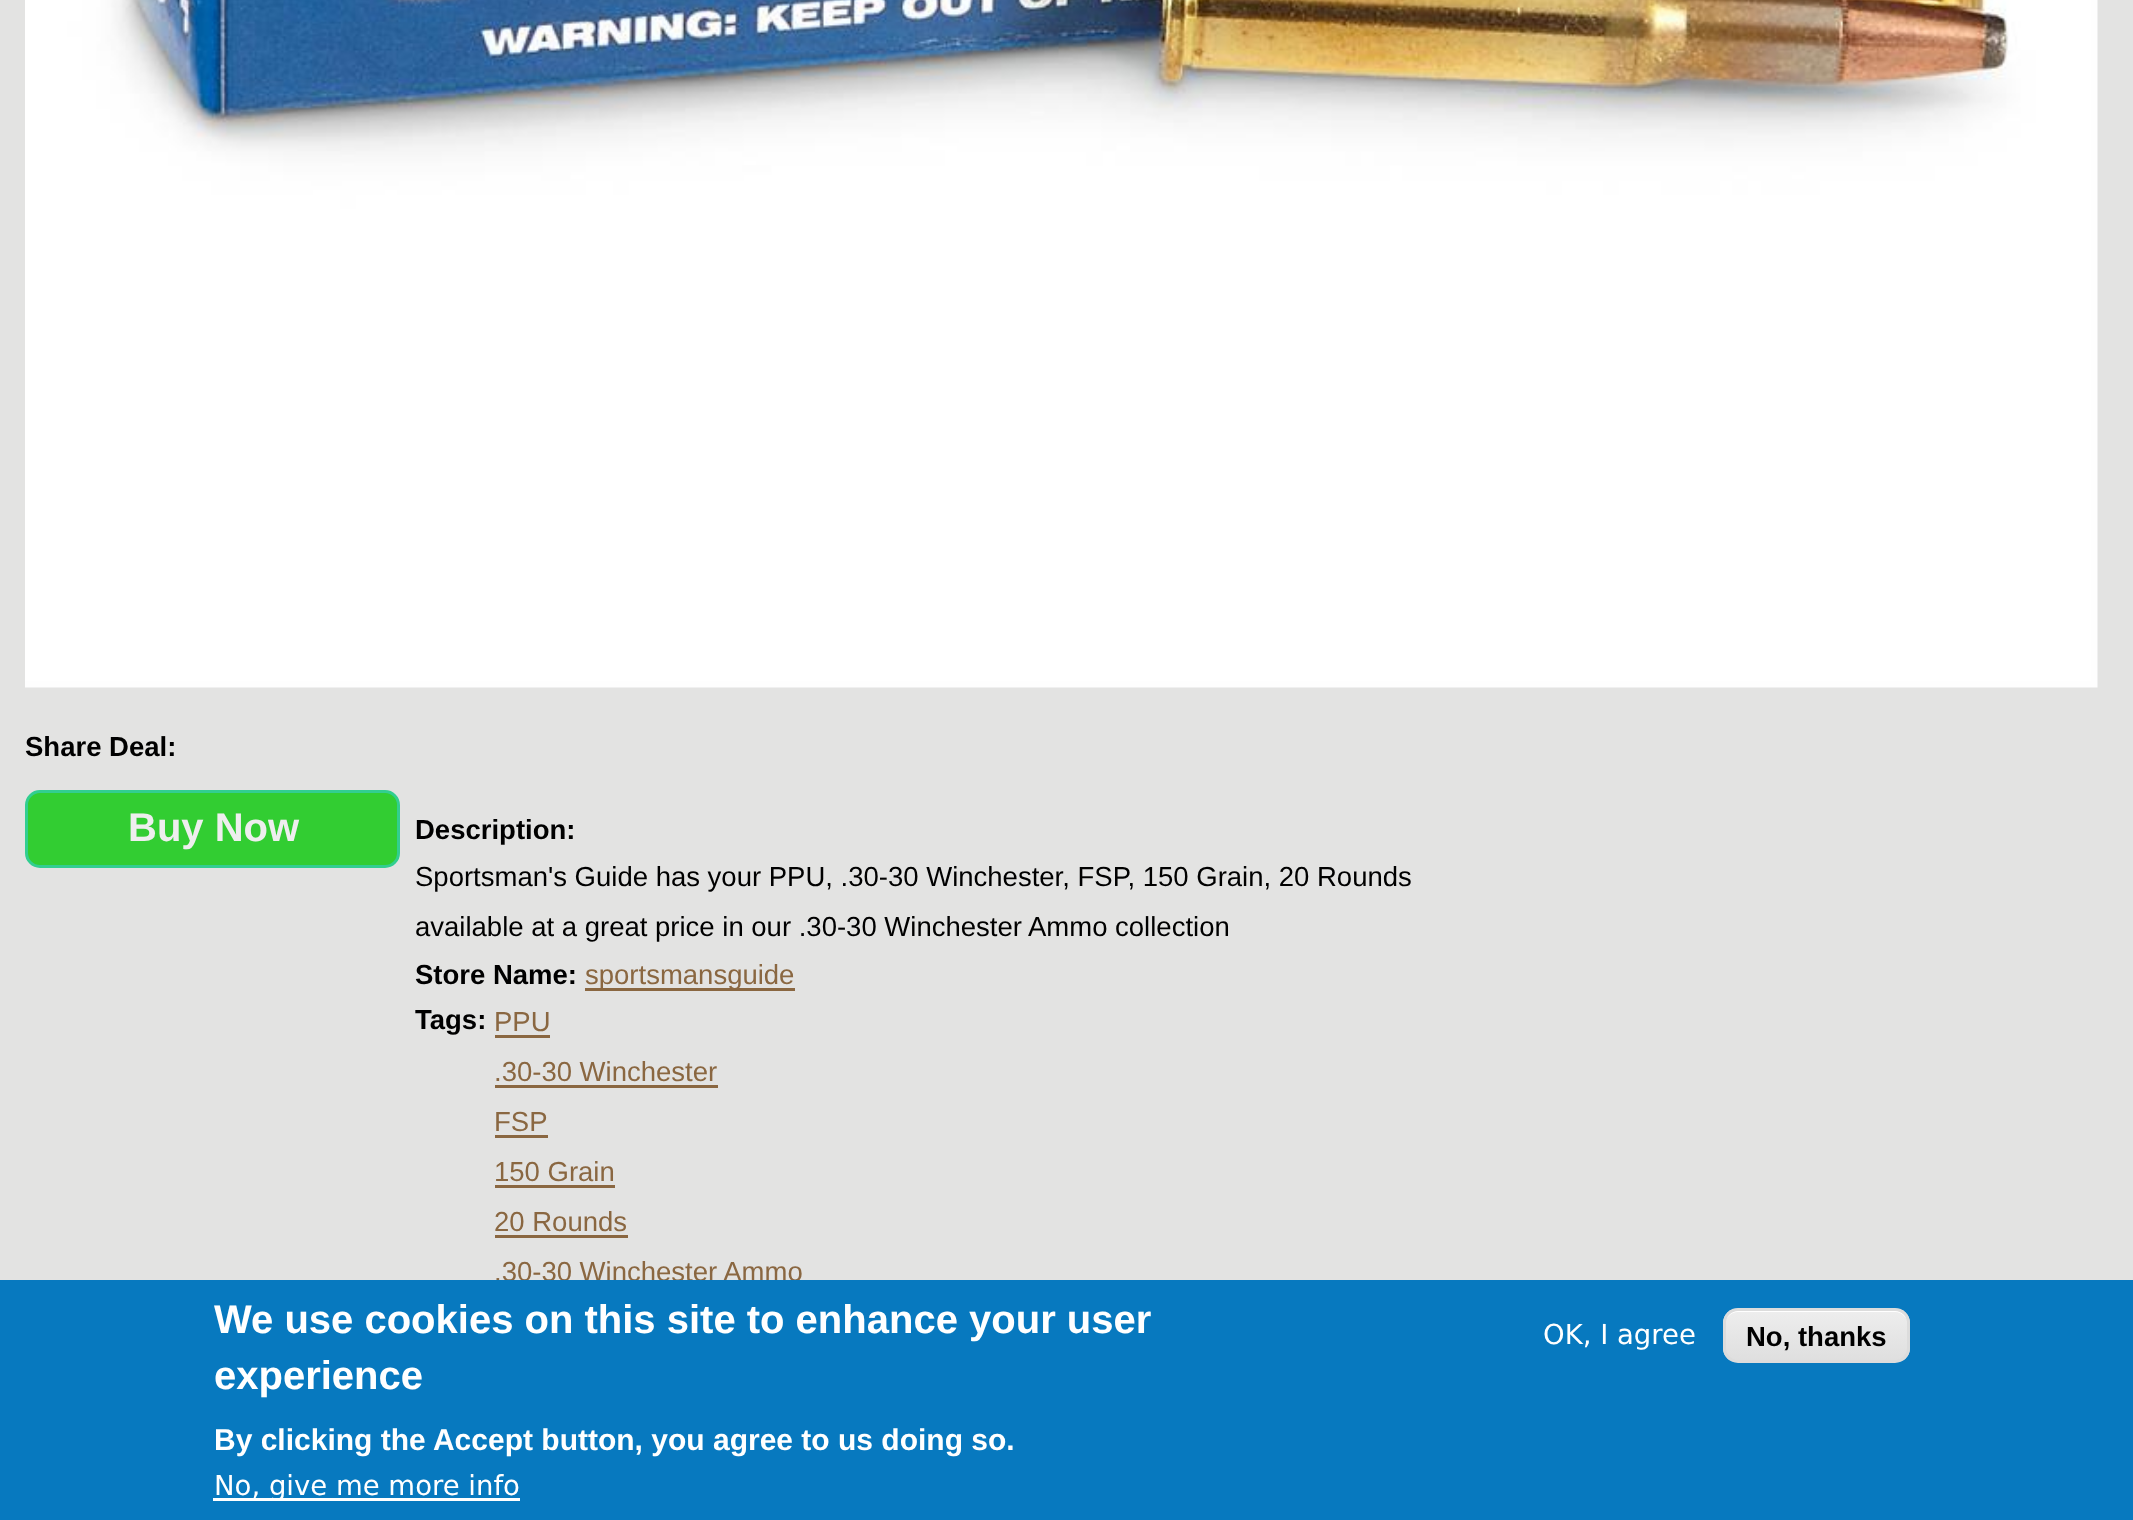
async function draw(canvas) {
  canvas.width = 2133
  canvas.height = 1520
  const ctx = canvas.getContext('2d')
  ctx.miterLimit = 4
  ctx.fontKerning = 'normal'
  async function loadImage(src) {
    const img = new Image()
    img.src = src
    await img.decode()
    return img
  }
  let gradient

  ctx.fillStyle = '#e3e3e2'
  ctx.fillRect(0, 0, 2133, 1520)
  ctx.drawImage(await loadImage('image0.png'), 25, 0, 2073, 688)
  ctx.font = 'bold 27.5px Liberation Sans'
  ctx.fillStyle = '#000'
  ctx.fillText('Share Deal:', 25, 756)
  ctx.fillStyle = '#32cd32'
  ctx.beginPath()
  ctx.roundRect(26.5, 791.5, 372, 75, 13.5)
  ctx.fill()
  ctx.strokeStyle = '#32ce90'
  ctx.lineWidth = 3
  ctx.stroke()
  ctx.font = 'bold 40px Liberation Sans'
  ctx.fillStyle = '#eee'
  ctx.fillText('Buy Now', 128, 841)
  ctx.font = 'bold 27.5px Liberation Sans'
  ctx.fillStyle = '#000'
  ctx.fillText('Description:', 415, 839)
  ctx.font = '27.5px Liberation Sans'
  ctx.fillText('Sportsman\'s Guide has your PPU, .30-30 Winchester, FSP, 150 Grain, 20 Rounds', 415, 886)
  ctx.fillText('available at a great price in our .30-30 Winchester Ammo collection', 415, 936)
  ctx.font = 'bold 27.5px Liberation Sans'
  ctx.fillText('Store Name:', 415, 984)
  ctx.fillStyle = '#8a6741'
  ctx.fillRect(585, 988, 210, 3)
  ctx.font = '27.5px Liberation Sans'
  ctx.fillText('sportsmansguide', 585, 984)
  ctx.font = 'bold 27.5px Liberation Sans'
  ctx.fillStyle = '#000'
  ctx.fillText('Tags:', 415, 1029)
  ctx.font = '27.5px Liberation Sans'
  ctx.fillStyle = '#8a6741'
  ctx.fillText('PPU', 494, 1031)
  ctx.fillRect(495, 1035, 55, 3)
  ctx.fillText('.30-30 Winchester', 494, 1081)
  ctx.fillRect(495, 1085, 223, 3)
  ctx.fillText('FSP', 494, 1131)
  ctx.fillRect(495, 1135, 53, 3)
  ctx.fillText('150 Grain', 494, 1181)
  ctx.fillRect(495, 1185, 120, 3)
  ctx.fillText('20 Rounds', 494, 1231)
  ctx.fillRect(495, 1235, 133, 3)
  ctx.fillText('.30-30 Winchester Ammo', 494, 1281)
  ctx.fillStyle = '#0779bf'
  ctx.fillRect(0, 1280, 2133, 240)
  ctx.font = 'bold 40px Liberation Sans'
  ctx.fillStyle = '#fff'
  ctx.fillText('We use cookies on this site to enhance your user', 214, 1333)
  ctx.fillText('experience', 214, 1389)
  ctx.font = 'bold 30px Liberation Sans'
  ctx.fillText('By clicking the Accept button, you agree to us doing so.', 214, 1450)
  ctx.fillRect(213, 1498, 307, 3)
  ctx.font = '27.5px DejaVu Sans'
  ctx.fillText('No, give me more info', 214, 1495)
  ctx.fillText('OK, I agree', 1543, 1344)
  ctx.save()
  ctx.beginPath()
  ctx.roundRect(1723, 1308, 187, 55, 15)
  ctx.clip()
  gradient = ctx.createLinearGradient(1816, 1310, 1816, 1360)
  gradient.addColorStop(0.05, '#ededed')
  gradient.addColorStop(1, '#dfdfdf')
  ctx.fillStyle = gradient
  ctx.fillRect(1723, 1310, 187, 50)
  ctx.restore()
  ctx.beginPath()
  ctx.moveTo(1738, 1312)
  ctx.lineTo(1895, 1312)
  ctx.bezierCurveTo(1902, 1312, 1908, 1318, 1908, 1325)
  ctx.bezierCurveTo(1908, 1304, 1883, 1310, 1869, 1310)
  ctx.lineTo(1764, 1310)
  ctx.bezierCurveTo(1750, 1310, 1725, 1304, 1725, 1325)
  ctx.bezierCurveTo(1725, 1318, 1731, 1312, 1738, 1312)
  ctx.closePath()
  ctx.fill()
  ctx.beginPath()
  ctx.roundRect(1724.5, 1309.5, 184, 52, 13.5)
  ctx.strokeStyle = '#dcdcdc'
  ctx.stroke()
  ctx.font = 'bold 27.5px Liberation Sans'
  ctx.fillStyle = '#000'
  ctx.fillText('No, thanks', 1746, 1346)
}

draw(document.querySelector('canvas'))
